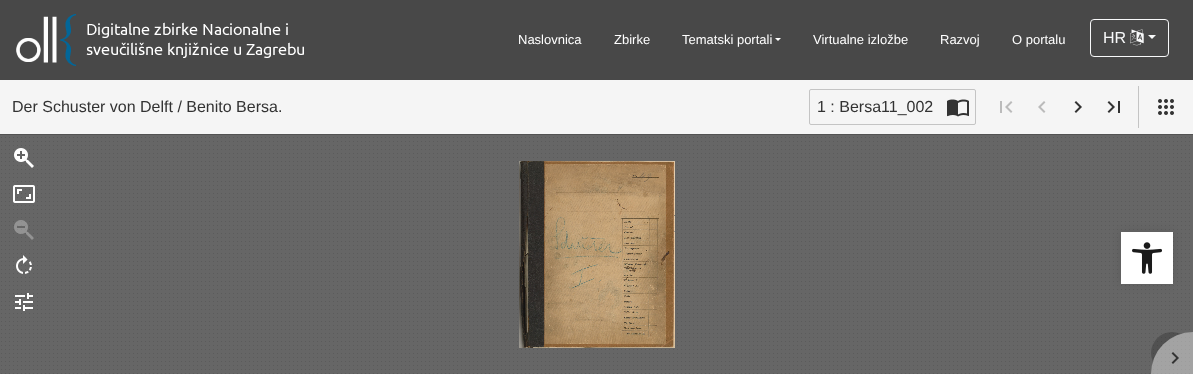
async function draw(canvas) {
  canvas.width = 1193
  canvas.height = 374
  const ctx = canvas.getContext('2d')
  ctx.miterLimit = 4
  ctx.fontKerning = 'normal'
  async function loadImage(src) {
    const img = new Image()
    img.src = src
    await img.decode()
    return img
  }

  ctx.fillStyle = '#666'
  ctx.fillRect(0, 0, 1193, 374)
  ctx.fillStyle = '#484848'
  ctx.fillRect(0, 0, 1193, 80)
  ctx.drawImage(await loadImage('image0.png'), 16, 14, 288, 52)
  ctx.font = '13px Liberation Sans'
  ctx.fillStyle = '#fff'
  ctx.fillText('Naslovnica', 518, 44)
  ctx.fillText('Zbirke', 614, 44)
  ctx.fillText('Tematski portali', 682, 44)
  ctx.beginPath()
  ctx.moveTo(775, 38)
  ctx.lineTo(781, 38)
  ctx.lineTo(778, 41)
  ctx.closePath()
  ctx.fill()
  ctx.fillText('Virtualne izložbe', 813, 44)
  ctx.fillText('Razvoj', 940, 44)
  ctx.fillText('O portalu', 1012, 44)
  ctx.beginPath()
  ctx.roundRect(1090.5, 19.5, 78, 37, 3.5)
  ctx.strokeStyle = '#f8f9fa'
  ctx.stroke()
  ctx.font = '16px Liberation Sans'
  ctx.fillStyle = '#f8f9fa'
  ctx.fillText('HR', 1103, 43)
  ctx.drawImage(await loadImage('image1.png'), 1130, 29, 14, 17)
  ctx.beginPath()
  ctx.moveTo(1148, 35)
  ctx.lineTo(1156, 35)
  ctx.lineTo(1152, 39)
  ctx.closePath()
  ctx.fill()
  ctx.drawImage(await loadImage('image2.png'), 1, 137, 1189, 237)
  ctx.fillStyle = '#525252'
  ctx.fillRect(0, 134, 1193, 1)
  ctx.fillStyle = '#f5f5f5'
  ctx.fillRect(0, 80, 1193, 54)
  ctx.fillStyle = '#333'
  ctx.fillText('Der Schuster von Delft / Benito Bersa.', 12, 112)
  ctx.beginPath()
  ctx.roundRect(809.5, 89.5, 166, 35, 1.5)
  ctx.strokeStyle = '#c4c4c4'
  ctx.stroke()
  ctx.fillText('1 : Bersa11_002', 817, 112)
  ctx.drawImage(await loadImage('image3.png'), 947, 99, 22, 18)
  ctx.drawImage(await loadImage('image4.png'), 1000, 101, 13, 12)
  ctx.drawImage(await loadImage('image5.png'), 1038, 101, 8, 12)
  ctx.drawImage(await loadImage('image6.png'), 1074, 101, 8, 12)
  ctx.drawImage(await loadImage('image7.png'), 1107, 101, 13, 12)
  ctx.fillStyle = '#c4c4c4'
  ctx.fillRect(1138, 86, 1, 42)
  ctx.drawImage(await loadImage('image8.png'), 1158, 99, 16, 16)
  ctx.drawImage(await loadImage('image9.png'), 14, 148, 20, 20)
  ctx.drawImage(await loadImage('image10.png'), 13, 185, 22, 18)
  ctx.drawImage(await loadImage('image11.png'), 14, 220, 20, 20)
  ctx.drawImage(await loadImage('image12.png'), 16, 255, 16, 19)
  ctx.drawImage(await loadImage('image13.png'), 15, 293, 18, 18)
  ctx.drawImage(await loadImage('image14.png'), 519, 161, 156, 187)
  ctx.save()
  ctx.beginPath()
  ctx.moveTo(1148, 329)
  ctx.lineTo(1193, 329)
  ctx.lineTo(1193, 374)
  ctx.lineTo(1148, 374)
  ctx.closePath()
  ctx.moveTo(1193, 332)
  ctx.lineTo(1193, 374)
  ctx.lineTo(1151, 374)
  ctx.bezierCurveTo(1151, 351, 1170, 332, 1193, 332)
  ctx.closePath()
  ctx.clip('evenodd')
  ctx.fillStyle = '#00000033'
  ctx.filter = 'blur(0.5px)'
  ctx.beginPath()
  ctx.roundRect(1151, 332, 42, 42, 42)
  ctx.fill()
  ctx.filter = 'none'
  ctx.restore()
  ctx.fillStyle = '#ffffff66'
  ctx.beginPath()
  ctx.roundRect(1151, 332, 42, 42, [42, 0, 0, 0])
  ctx.fill()
  ctx.drawImage(await loadImage('image15.png'), 1171, 352, 8, 12)
  ctx.fillStyle = '#0000001a'
  ctx.filter = 'blur(5px)'
  ctx.beginPath()
  ctx.rect(1121, 232, 52, 52)
  ctx.fill()
  ctx.filter = 'none'
  ctx.fillStyle = '#fff'
  ctx.fillRect(1121, 232, 52, 52)
  ctx.drawImage(await loadImage('image16.png'), 1132, 242, 30, 32)
}

draw(document.querySelector('canvas'))
